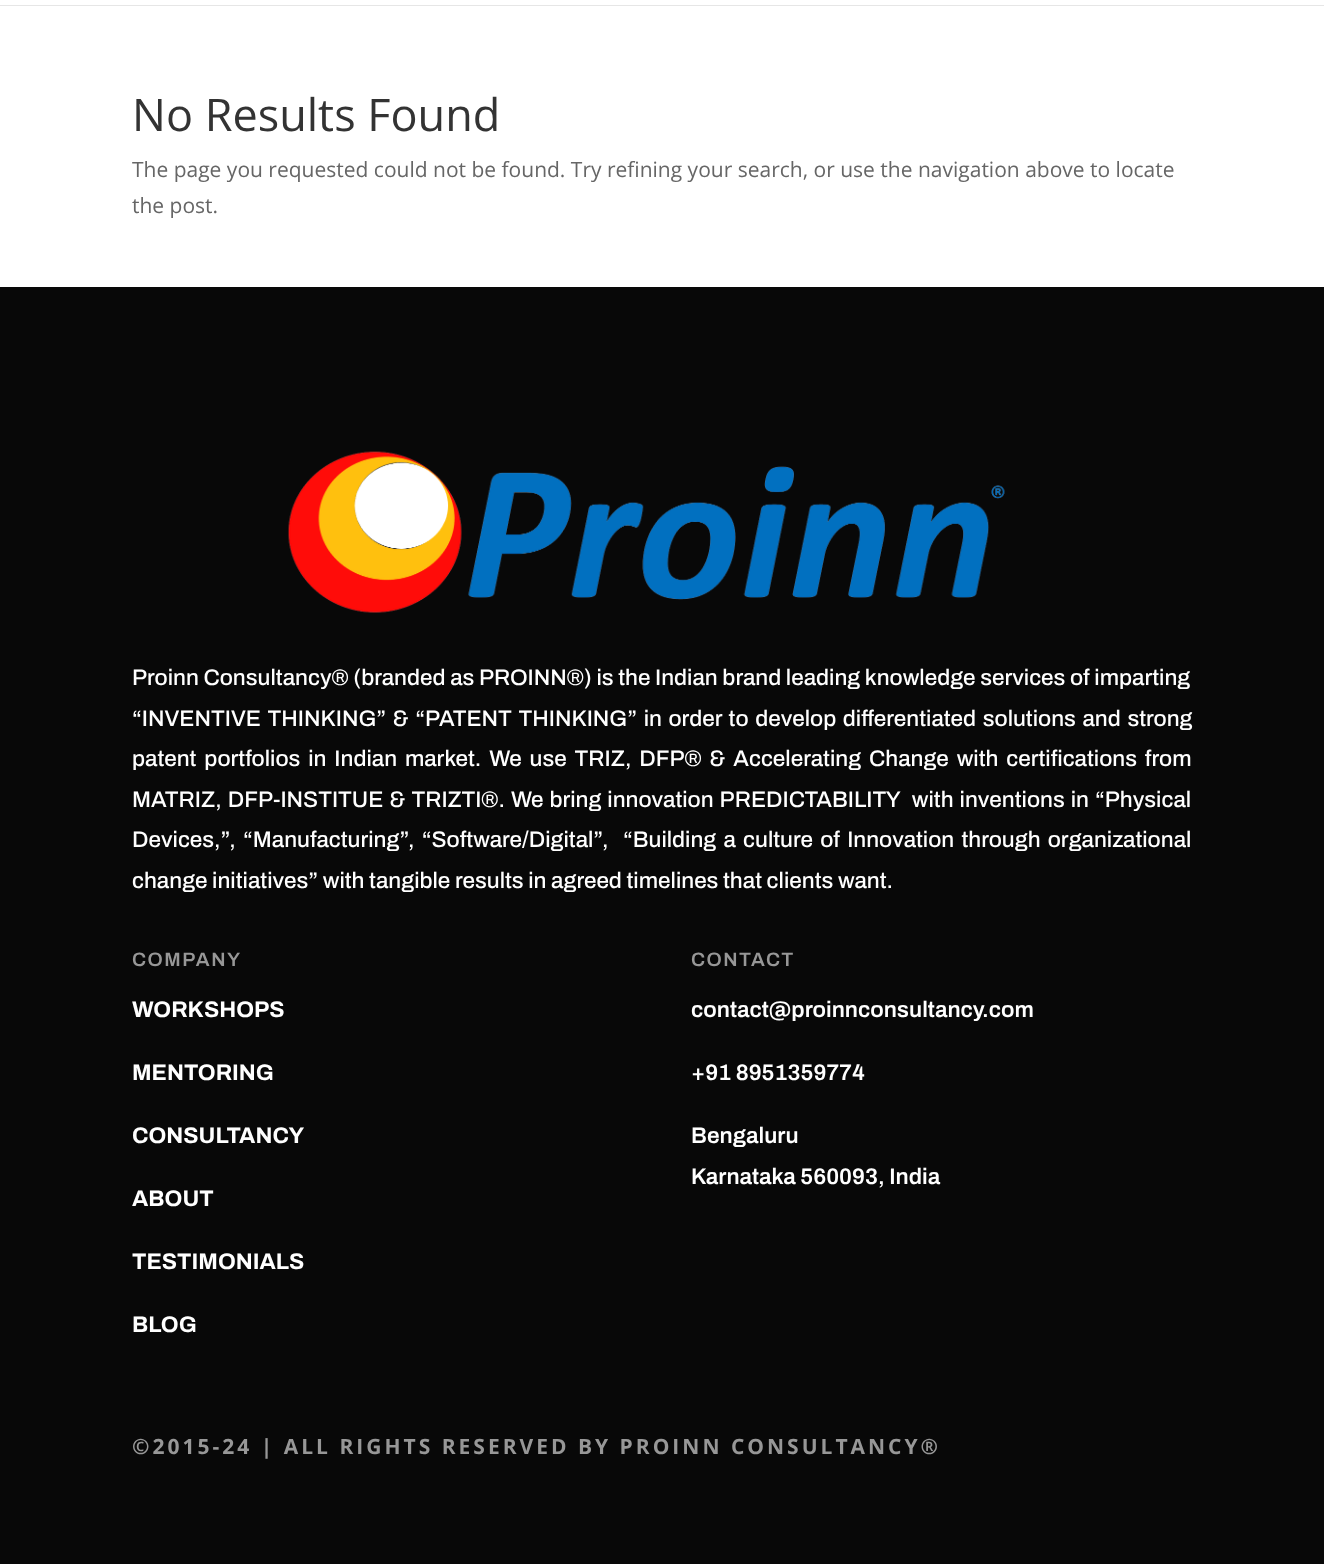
async function draw(canvas) {
  canvas.width = 1324
  canvas.height = 1564
  const ctx = canvas.getContext('2d')
  ctx.miterLimit = 4
  ctx.fontKerning = 'normal'
  async function loadImage(src) {
    const img = new Image()
    img.src = src
    await img.decode()
    return img
  }

  ctx.fillStyle = '#fff'
  ctx.fillRect(0, 0, 1324, 1564)
  ctx.fillStyle = '#e6e6e6'
  ctx.beginPath()
  ctx.moveTo(0, 4)
  ctx.lineTo(0, 6)
  ctx.lineTo(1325, 6)
  ctx.lineTo(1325, -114)
  ctx.lineTo(1324, -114)
  ctx.lineTo(1324, 4)
  ctx.closePath()
  ctx.fill()
  ctx.fillStyle = '#fff'
  ctx.fillRect(0, 4, 1324, 1)
  ctx.font = '45px Open Sans'
  ctx.fillStyle = '#333'
  ctx.fillText('No Results Found', 132, 131)
  ctx.font = '21px Open Sans'
  ctx.fillStyle = '#666'
  ctx.fillText('The page you requested could not be found. Try refining your search, or use the navigation above to locate', 132, 177)
  ctx.fillText('the post.', 132, 213)
  ctx.fillStyle = '#080808'
  ctx.fillRect(0, 287, 1324, 1277)
  ctx.drawImage(await loadImage('image0.png'), 288, 451, 717, 162)
  ctx.font = '600 22.5px Archivo'
  ctx.fillStyle = '#fff'
  ctx.fillText('Proinn Consultancy® (branded as PROINN®) is the Indian brand leading knowledge services of imparting', 132, 685)
  ctx.wordSpacing = '2px'
  ctx.fillText('“INVENTIVE THINKING” & “PATENT THINKING” in order to develop differentiated solutions and strong', 132, 726)
  ctx.wordSpacing = '3.25px'
  ctx.fillText('patent portfolios in Indian market. We use TRIZ, DFP® & Accelerating Change with certifications from', 132, 766)
  ctx.wordSpacing = '1.4px'
  ctx.fillText('MATRIZ, DFP-INSTITUE & TRIZTI®. We bring innovation PREDICTABILITY  with inventions in “Physical', 132, 807)
  ctx.wordSpacing = '2.6px'
  ctx.fillText('Devices,”, “Manufacturing”, “Software/Digital”,  “Building a culture of Innovation through organizational', 132, 847)
  ctx.wordSpacing = '0px'
  ctx.fillText('change initiatives” with tangible results in agreed timelines that clients want.', 132, 888)
  ctx.letterSpacing = '1.5px'
  ctx.font = '600 19.5px "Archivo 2"'
  ctx.fillStyle = '#979797'
  ctx.fillText('COMPANY', 132, 966)
  ctx.letterSpacing = '0px'
  ctx.font = '600 22.5px "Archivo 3"'
  ctx.fillStyle = '#fff'
  ctx.fillText('WORKSHOPS', 132, 1017)
  ctx.fillText('MENTORING', 132, 1080)
  ctx.fillText('CONSULTANCY', 132, 1143)
  ctx.fillText('ABOUT', 132, 1206)
  ctx.fillText('TESTIMONIALS', 132, 1269)
  ctx.fillText('BLOG', 132, 1332)
  ctx.letterSpacing = '1.5px'
  ctx.font = '600 19.5px "Archivo 2"'
  ctx.fillStyle = '#979797'
  ctx.fillText('CONTACT', 691, 966)
  ctx.letterSpacing = '0px'
  ctx.font = '600 22.5px "Archivo 2"'
  ctx.fillStyle = '#fff'
  ctx.fillText('contact@proinnconsultancy.com', 691, 1017)
  ctx.fillText('+91 8951359774', 691, 1080)
  ctx.fillText('Bengaluru', 691, 1143)
  ctx.fillText('Karnataka 560093, India', 691, 1184)
  ctx.letterSpacing = '3px'
  ctx.font = 'bold 21px Open Sans'
  ctx.fillStyle = '#979797'
  ctx.fillText('©2015-24 | ALL RIGHTS RESERVED BY PROINN CONSULTANCY®', 132, 1454)
}

draw(document.querySelector('canvas'))
